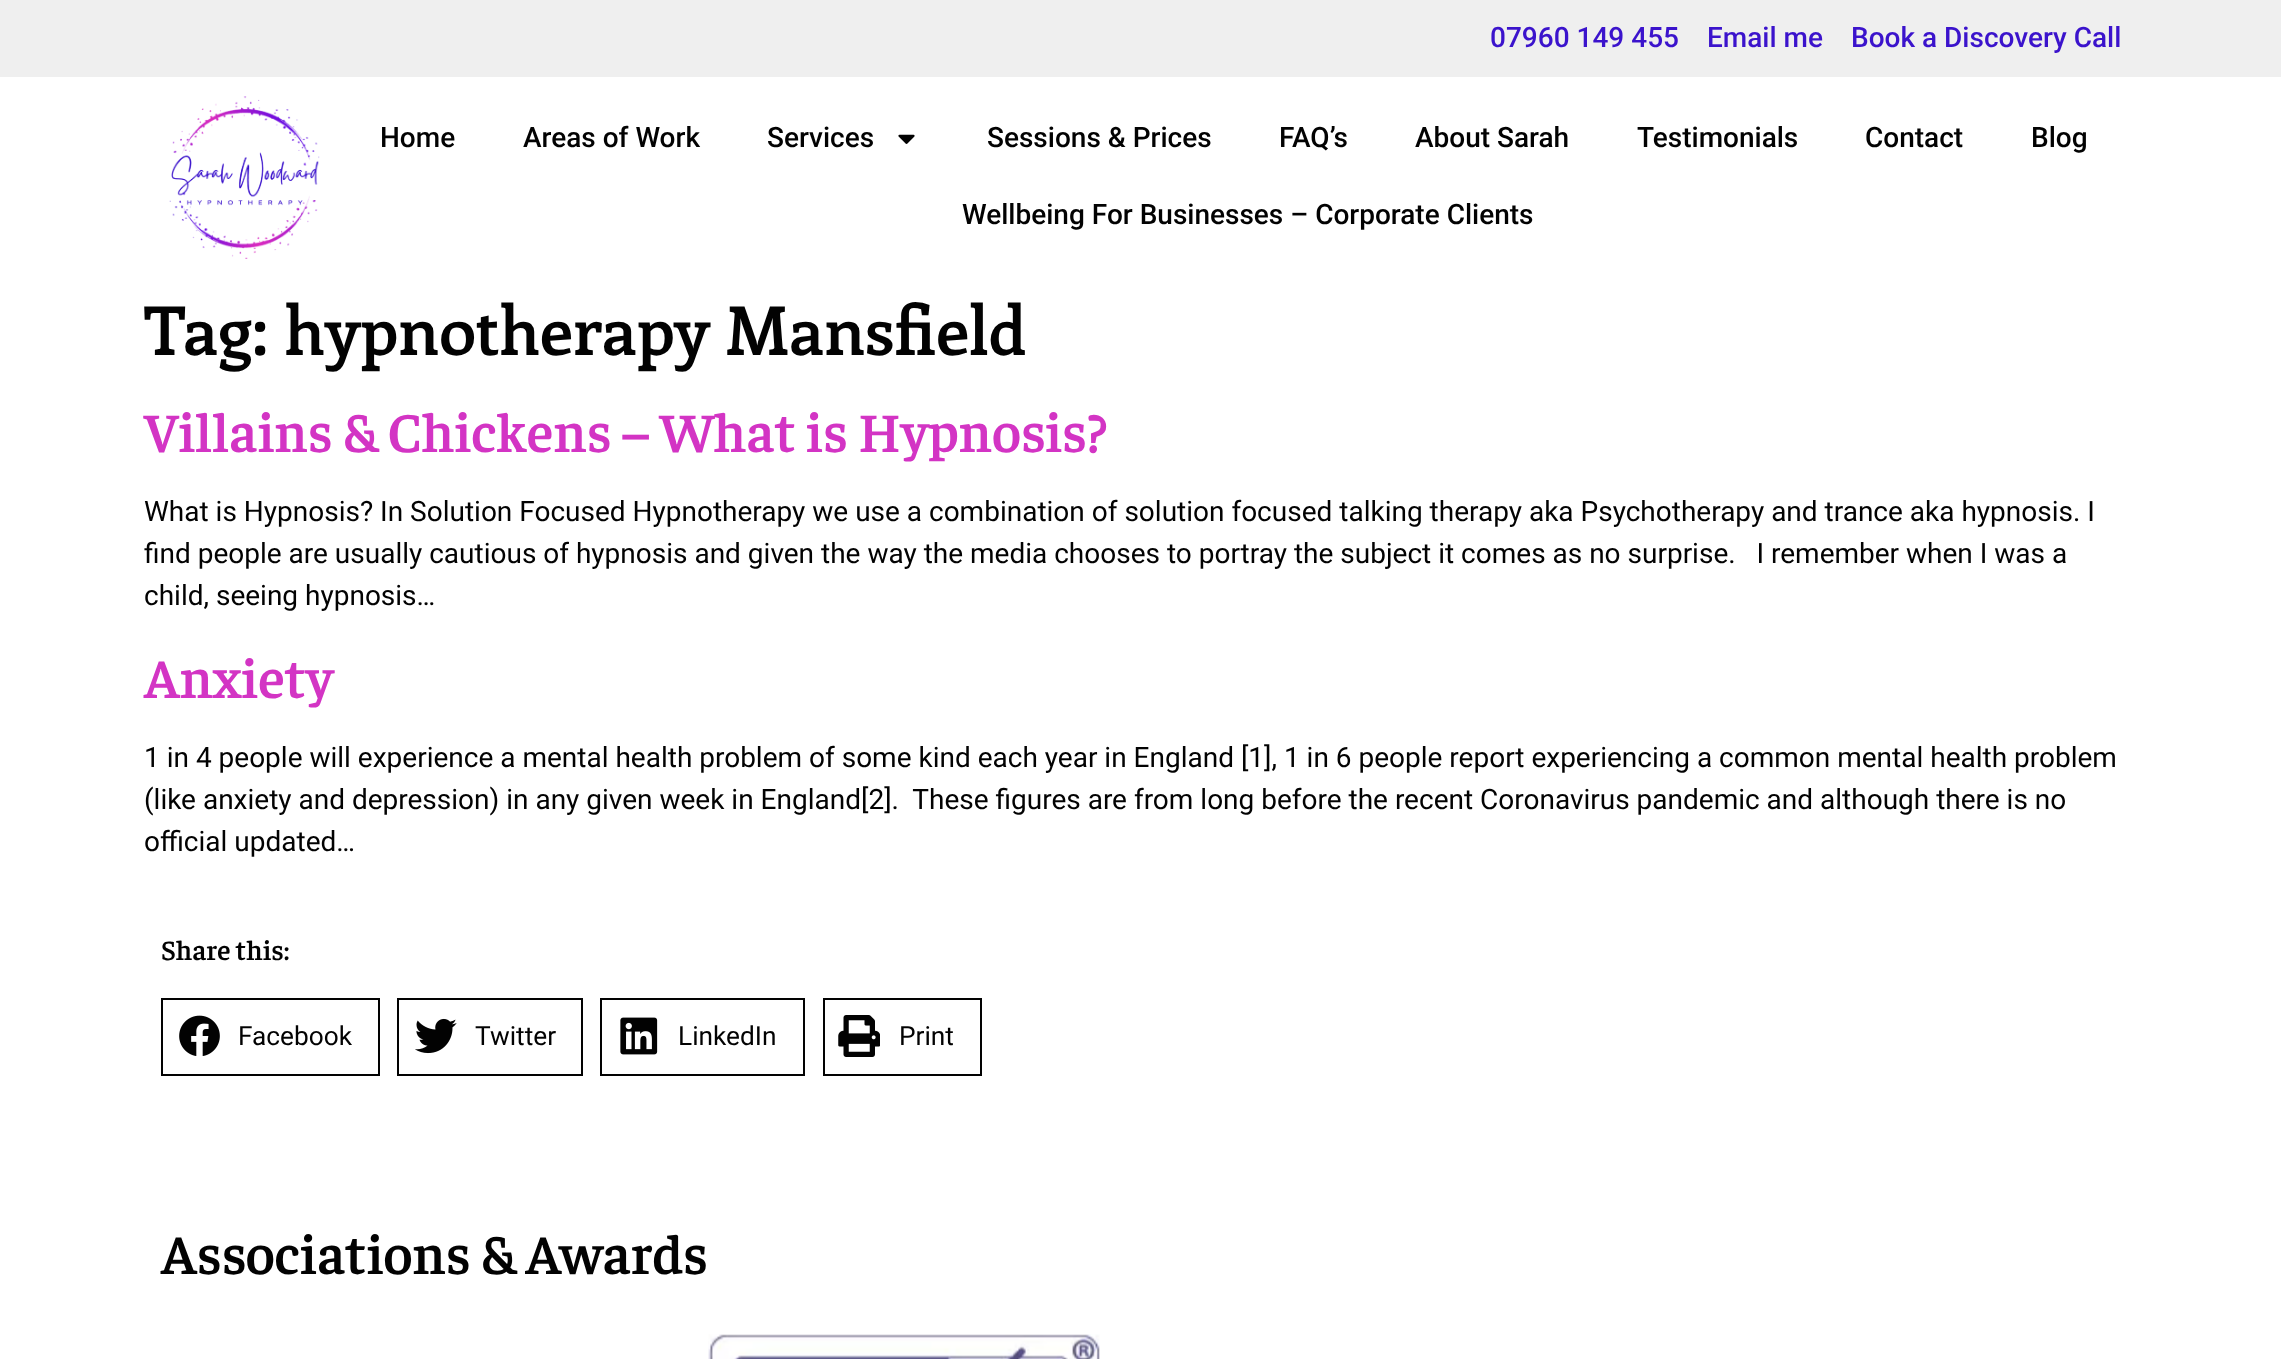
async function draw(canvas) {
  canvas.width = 2281
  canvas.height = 1359
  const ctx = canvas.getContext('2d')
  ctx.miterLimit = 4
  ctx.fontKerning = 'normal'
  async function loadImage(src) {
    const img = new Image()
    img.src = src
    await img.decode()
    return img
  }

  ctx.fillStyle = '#fff'
  ctx.fillRect(0, 0, 2281, 1359)
  ctx.fillStyle = '#efefef'
  ctx.fillRect(0, 0, 2281, 77)
  ctx.font = '500 28px Roboto'
  ctx.fillStyle = '#3b13cc'
  ctx.fillText('07960 149 455', 1490, 47)
  ctx.fillText('Email me', 1707, 47)
  ctx.fillText('Book a Discovery Call', 1851, 47)
  ctx.drawImage(await loadImage('image0.png'), 169, 96, 151, 163)
  ctx.fillStyle = '#020202'
  ctx.fillText('Home', 380, 147)
  ctx.fillText('Areas of Work', 523, 147)
  ctx.fillText('Services', 767, 147)
  ctx.drawImage(await loadImage('image1.png'), 898, 134, 17, 10)
  ctx.fillText('Sessions & Prices', 987, 147)
  ctx.fillText('FAQ’s', 1279, 147)
  ctx.fillText('About Sarah', 1415, 147)
  ctx.fillText('Testimonials', 1637, 147)
  ctx.fillText('Contact', 1865, 147)
  ctx.fillText('Blog', 2031, 147)
  ctx.fillText('Wellbeing For Businesses – Corporate Clients', 962, 224)
  ctx.font = '600 67.25px Enriqueta'
  ctx.fillText('Tag: hypnotherapy Mansfield', 144, 355)
  ctx.font = '600 56px Faustina'
  ctx.fillStyle = '#d334c4'
  ctx.fillText('Villains & Chickens – What is Hypnosis?', 144, 452)
  ctx.font = '28px Roboto'
  ctx.fillStyle = '#020202'
  ctx.fillText('What is Hypnosis? In Solution Focused Hypnotherapy we use a combination of solution focused talking therapy aka Psychotherapy and trance aka hypnosis. I', 144, 521)
  ctx.fillText('find people are usually cautious of hypnosis and given the way the media chooses to portray the subject it comes as no surprise.   I remember when I was a', 144, 563)
  ctx.fillText('child, seeing hypnosis…', 144, 605)
  ctx.font = '600 56px Faustina'
  ctx.fillStyle = '#d334c4'
  ctx.fillText('Anxiety', 144, 698)
  ctx.font = '28px Roboto'
  ctx.fillStyle = '#020202'
  ctx.fillText('1 in 4 people will experience a mental health problem of some kind each year in England [1], 1 in 6 people report experiencing a common mental health problem', 144, 767)
  ctx.fillText('(like anxiety and depression) in any given week in England[2].  These figures are from long before the recent Coronavirus pandemic and although there is no', 144, 809)
  ctx.fillText('official updated…', 144, 851)
  ctx.font = '600 28px Faustina'
  ctx.fillText('Share this:', 161, 960)
  ctx.strokeStyle = '#020202'
  ctx.lineWidth = 2
  ctx.strokeRect(162, 999, 217, 76)
  ctx.drawImage(await loadImage('image2.png'), 179, 1015, 41, 41)
  ctx.font = '26.25px Roboto'
  ctx.fillText('Facebook', 238, 1045)
  ctx.strokeRect(398, 999, 184, 76)
  ctx.drawImage(await loadImage('image3.png'), 415, 1018, 42, 36)
  ctx.fillText('Twitter', 475, 1045)
  ctx.strokeRect(601, 999, 203, 76)
  ctx.drawImage(await loadImage('image4.png'), 620, 1017, 38, 38)
  ctx.fillText('LinkedIn', 678, 1045)
  ctx.strokeRect(824, 999, 157, 76)
  ctx.drawImage(await loadImage('image5.png'), 838, 1015, 42, 42)
  ctx.fillText('Print', 899, 1045)
  ctx.font = '600 56px Faustina'
  ctx.fillText('Associations & Awards', 161, 1274)
  ctx.drawImage(await loadImage('image6.png'), 708, 1334, 392, 25)
}

draw(document.querySelector('canvas'))
